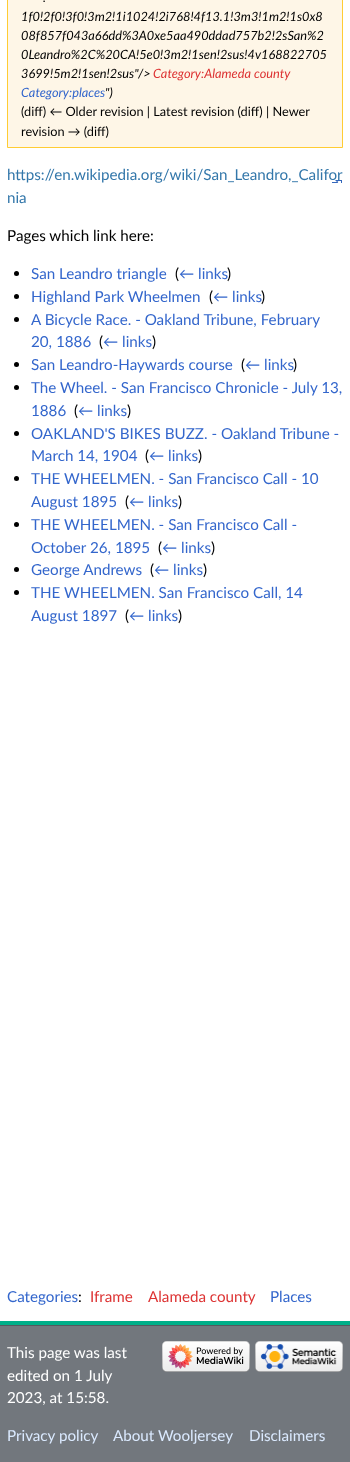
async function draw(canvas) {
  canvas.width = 350
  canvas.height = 1462
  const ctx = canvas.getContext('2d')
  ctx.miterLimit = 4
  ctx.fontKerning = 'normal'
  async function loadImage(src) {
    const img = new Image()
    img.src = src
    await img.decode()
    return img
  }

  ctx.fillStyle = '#72777d'
  ctx.fillRect(0, 0, 350, 1462)
  ctx.fillStyle = '#00af89'
  ctx.fillRect(0, 1321, 350, 4)
  ctx.fillStyle = '#fff'
  ctx.fillRect(0, 0, 350, 1321)
  ctx.fillStyle = '#fef6e7'
  ctx.beginPath()
  ctx.rect(7.5, -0.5, 335, 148)
  ctx.fill()
  ctx.strokeStyle = '#fc3'
  ctx.stroke()
  ctx.font = 'italic 12.75px Lato'
  ctx.fillStyle = '#000'
  ctx.fillText('.', 43, 2)
  ctx.fillText('1f0!2f0!3f0!3m2!1i1024!2i768!4f13.1!3m3!1m2!1s0x8', 21, 21)
  ctx.fillText('08f857f043a66dd%3A0xe5aa490ddad757b2!2sSan%2', 21, 40)
  ctx.fillText('0Leandro%2C%20CA!5e0!3m2!1sen!2sus!4v168822705', 21, 59)
  ctx.fillText('3699!5m2!1sen!2sus"/>', 21, 78)
  ctx.fillStyle = '#d33'
  ctx.fillText('Category:Alameda county', 153, 78)
  ctx.fillStyle = '#36c'
  ctx.fillText('Category:places', 21, 97)
  ctx.fillStyle = '#000'
  ctx.fillText('")', 105, 97)
  ctx.font = '12.75px Lato'
  ctx.fillText('(diff) ← Older revision | Latest revision (diff) | Newer', 21, 116)
  ctx.fillText('revision → (diff)', 21, 136)
  ctx.drawImage(await loadImage('image0.png'), 332, 180, 10, 3)
  ctx.font = '15.2px Lato'
  ctx.fillStyle = '#37a'
  ctx.fillText('https://en.wikipedia.org/wiki/San_Leandro,_Califor', 7, 180)
  ctx.fillText('nia', 7, 203)
  ctx.fillStyle = '#000'
  ctx.fillText('Pages which link here:', 7, 241)
  ctx.beginPath()
  ctx.arc(16.5, 273.5, 2.5, 0, 2 * Math.PI)
  ctx.fill()
  ctx.fillStyle = '#36c'
  ctx.fillText('San Leandro triangle', 31, 279)
  ctx.fillStyle = '#000'
  ctx.fillText('(', 175, 279)
  ctx.fillStyle = '#36c'
  ctx.fillText('← links', 179, 279)
  ctx.fillStyle = '#000'
  ctx.fillText(')', 227, 279)
  ctx.beginPath()
  ctx.arc(16.5, 296.5, 2.5, 0, 2 * Math.PI)
  ctx.fill()
  ctx.fillStyle = '#36c'
  ctx.fillText('Highland Park Wheelmen', 31, 302)
  ctx.fillStyle = '#000'
  ctx.fillText('(', 209, 302)
  ctx.fillStyle = '#36c'
  ctx.fillText('← links', 213, 302)
  ctx.fillStyle = '#000'
  ctx.fillText(')', 261, 302)
  ctx.beginPath()
  ctx.arc(16.5, 319.5, 2.5, 0, 2 * Math.PI)
  ctx.fill()
  ctx.fillStyle = '#36c'
  ctx.fillText('A Bicycle Race. - Oakland Tribune, February', 31, 325)
  ctx.fillText('20, 1886', 31, 347)
  ctx.fillStyle = '#000'
  ctx.fillText('(', 99, 347)
  ctx.fillStyle = '#36c'
  ctx.fillText('← links', 103, 347)
  ctx.fillStyle = '#000'
  ctx.fillText(')', 152, 347)
  ctx.beginPath()
  ctx.arc(16.5, 364.5, 2.5, 0, 2 * Math.PI)
  ctx.fill()
  ctx.fillStyle = '#36c'
  ctx.fillText('San Leandro-Haywards course', 31, 370)
  ctx.fillStyle = '#000'
  ctx.fillText('(', 241, 370)
  ctx.fillStyle = '#36c'
  ctx.fillText('← links', 245, 370)
  ctx.fillStyle = '#000'
  ctx.fillText(')', 293, 370)
  ctx.beginPath()
  ctx.arc(16.5, 387.5, 2.5, 0, 2 * Math.PI)
  ctx.fill()
  ctx.fillStyle = '#36c'
  ctx.fillText('The Wheel. - San Francisco Chronicle - July 13,', 31, 393)
  ctx.fillText('1886', 31, 416)
  ctx.fillStyle = '#000'
  ctx.fillText('(', 74, 416)
  ctx.fillStyle = '#36c'
  ctx.fillText('← links', 78, 416)
  ctx.fillStyle = '#000'
  ctx.fillText(')', 127, 416)
  ctx.beginPath()
  ctx.arc(16.5, 433.5, 2.5, 0, 2 * Math.PI)
  ctx.fill()
  ctx.fillStyle = '#36c'
  ctx.fillText('OAKLAND\'S BIKES BUZZ. - Oakland Tribune -', 31, 439)
  ctx.fillText('March 14, 1904', 31, 461)
  ctx.fillStyle = '#000'
  ctx.fillText('(', 145, 461)
  ctx.fillStyle = '#36c'
  ctx.fillText('← links', 149, 461)
  ctx.fillStyle = '#000'
  ctx.fillText(')', 198, 461)
  ctx.beginPath()
  ctx.arc(16.5, 478.5, 2.5, 0, 2 * Math.PI)
  ctx.fill()
  ctx.fillStyle = '#36c'
  ctx.fillText('THE WHEELMEN. - San Francisco Call - 10', 31, 484)
  ctx.fillText('August 1895', 31, 507)
  ctx.fillStyle = '#000'
  ctx.fillText('(', 125, 507)
  ctx.fillStyle = '#36c'
  ctx.fillText('← links', 129, 507)
  ctx.fillStyle = '#000'
  ctx.fillText(')', 178, 507)
  ctx.beginPath()
  ctx.arc(16.5, 524.5, 2.5, 0, 2 * Math.PI)
  ctx.fill()
  ctx.fillStyle = '#36c'
  ctx.fillText('THE WHEELMEN. - San Francisco Call -', 31, 530)
  ctx.fillText('October 26, 1895', 31, 553)
  ctx.fillStyle = '#000'
  ctx.fillText('(', 158, 553)
  ctx.fillStyle = '#36c'
  ctx.fillText('← links', 162, 553)
  ctx.fillStyle = '#000'
  ctx.fillText(')', 211, 553)
  ctx.beginPath()
  ctx.arc(16.5, 569.5, 2.5, 0, 2 * Math.PI)
  ctx.fill()
  ctx.fillStyle = '#36c'
  ctx.fillText('George Andrews', 31, 575)
  ctx.fillStyle = '#000'
  ctx.fillText('(', 150, 575)
  ctx.fillStyle = '#36c'
  ctx.fillText('← links', 154, 575)
  ctx.fillStyle = '#000'
  ctx.fillText(')', 203, 575)
  ctx.beginPath()
  ctx.arc(16.5, 592.5, 2.5, 0, 2 * Math.PI)
  ctx.fill()
  ctx.fillStyle = '#36c'
  ctx.fillText('THE WHEELMEN. San Francisco Call, 14', 31, 598)
  ctx.fillText('August 1897', 31, 621)
  ctx.fillStyle = '#000'
  ctx.fillText('(', 125, 621)
  ctx.fillStyle = '#36c'
  ctx.fillText('← links', 129, 621)
  ctx.fillStyle = '#000'
  ctx.fillText(')', 178, 621)
  ctx.fillStyle = '#36c'
  ctx.fillText('Categories', 7, 1302)
  ctx.fillStyle = '#000'
  ctx.fillText(':', 78, 1302)
  ctx.fillStyle = '#d33'
  ctx.fillText('Iframe', 90, 1302)
  ctx.fillText('Alameda county', 148, 1302)
  ctx.fillStyle = '#36c'
  ctx.fillText('Places', 270, 1302)
  ctx.fillStyle = '#54595d'
  ctx.fillRect(0, 1325, 350, 1)
  ctx.drawImage(await loadImage('image1.png'), 162, 1341, 88, 31)
  ctx.drawImage(await loadImage('image2.png'), 255, 1341, 88, 31)
  ctx.fillStyle = '#fff'
  ctx.fillText('This page was last', 7, 1358)
  ctx.fillText('edited on 1 July', 7, 1381)
  ctx.fillText('2023, at 15:58.', 7, 1403)
  ctx.fillStyle = '#dbeaff'
  ctx.fillText('Privacy policy', 7, 1441)
  ctx.fillText('About Wooljersey', 113, 1441)
  ctx.fillText('Disclaimers', 249, 1441)
}

draw(document.querySelector('canvas'))
